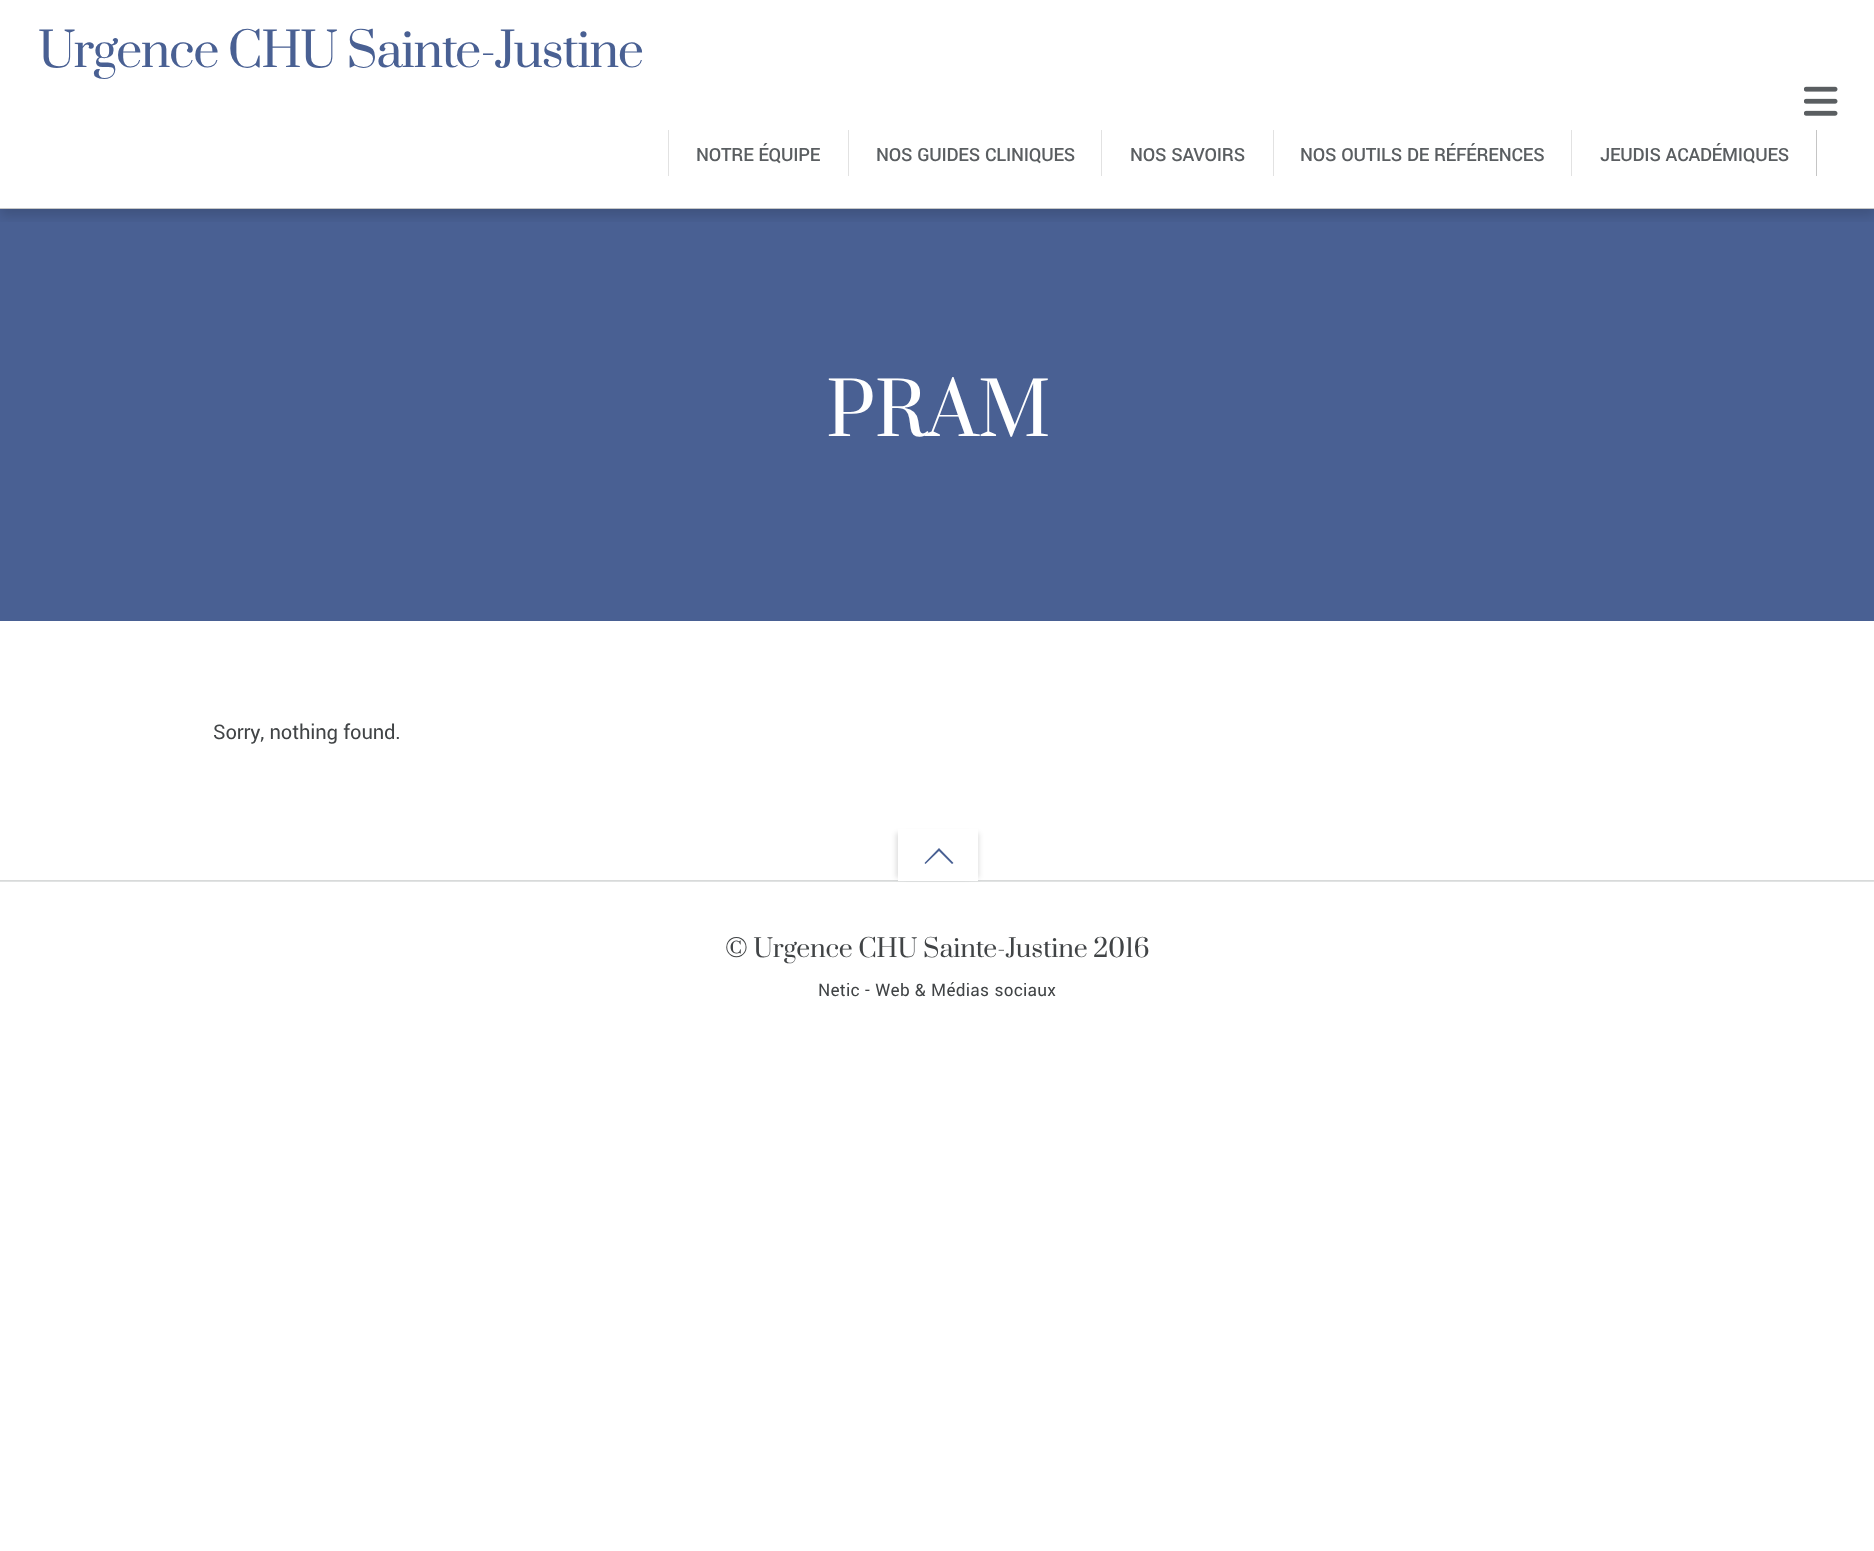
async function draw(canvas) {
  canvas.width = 1874
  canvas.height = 1551
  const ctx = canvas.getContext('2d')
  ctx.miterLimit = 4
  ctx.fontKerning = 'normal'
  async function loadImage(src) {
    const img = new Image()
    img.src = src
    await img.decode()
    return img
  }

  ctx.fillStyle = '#fff'
  ctx.fillRect(0, 0, 1874, 1551)
  ctx.fillStyle = '#496093'
  ctx.fillRect(0, 209, 1874, 412)
  ctx.save()
  ctx.beginPath()
  ctx.rect(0, 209, 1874, 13)
  ctx.clip()
  ctx.fillStyle = '#00000024'
  ctx.filter = 'blur(6px)'
  ctx.beginPath()
  ctx.rect(0, 8, 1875, 208)
  ctx.fill()
  ctx.filter = 'none'
  ctx.restore()
  ctx.fillStyle = '#c6c7c7'
  ctx.fillRect(0, 208, 1874, 1)
  ctx.letterSpacing = '-1.4px'
  ctx.font = '46.75px Prata'
  ctx.fillStyle = '#496093'
  ctx.fillText('Urgence CHU Sainte-Justine', 38, 67)
  ctx.drawImage(await loadImage('image0.png'), 1804, 86, 34, 30)
  ctx.fillStyle = '#e2e2e2'
  ctx.fillRect(668, 130, 1, 46)
  ctx.letterSpacing = '-0.2px'
  ctx.font = '500 20.25px Yantramanav'
  ctx.fillStyle = '#5a5e61'
  ctx.fillText('NOTRE ÉQUIPE', 696, 161)
  ctx.fillStyle = '#e2e2e2'
  ctx.fillRect(848, 130, 1, 46)
  ctx.fillStyle = '#5a5e61'
  ctx.fillText('NOS GUIDES CLINIQUES', 876, 161)
  ctx.fillStyle = '#e2e2e2'
  ctx.fillRect(1101, 130, 1, 46)
  ctx.fillStyle = '#5a5e61'
  ctx.fillText('NOS SAVOIRS', 1130, 161)
  ctx.fillStyle = '#e2e2e2'
  ctx.fillRect(1273, 130, 1, 46)
  ctx.fillStyle = '#5a5e61'
  ctx.fillText('NOS OUTILS DE RÉFÉRENCES', 1300, 161)
  ctx.fillStyle = '#c5c5c5'
  ctx.fillRect(1816, 130, 1, 46)
  ctx.fillStyle = '#e2e2e2'
  ctx.fillRect(1571, 130, 1, 46)
  ctx.fillStyle = '#5a5e61'
  ctx.fillText('JEUDIS ACADÉMIQUES', 1600, 161)
  ctx.letterSpacing = '-0.5px'
  ctx.font = '72px Prata'
  ctx.fillStyle = '#fff'
  ctx.fillText('PRAM', 826, 436)
  ctx.letterSpacing = '-0.2px'
  ctx.font = '22.5px Yantramanav'
  ctx.fillStyle = '#414446'
  ctx.fillText('Sorry, nothing found.', 213, 739)
  ctx.fillStyle = '#d8dada'
  ctx.fillRect(0, 880, 1874, 1)
  ctx.fillStyle = '#e1e3e3'
  ctx.fillRect(0, 881, 1874, 1)
  ctx.fillStyle = '#00000021'
  ctx.filter = 'blur(2.5px)'
  ctx.beginPath()
  ctx.rect(896, 833, 73, 45)
  ctx.fill()
  ctx.filter = 'none'
  ctx.filter = 'blur(2.5px)'
  ctx.beginPath()
  ctx.rect(906, 833, 73, 45)
  ctx.fill()
  ctx.filter = 'none'
  ctx.fillStyle = '#fff'
  ctx.fillRect(898, 829, 80, 52)
  ctx.fillStyle = '#496093'
  ctx.beginPath()
  ctx.moveTo(953.5, 863)
  ctx.lineTo(952, 864)
  ctx.lineTo(939, 851)
  ctx.lineTo(925.5, 864)
  ctx.lineTo(924.5, 863)
  ctx.lineTo(939, 848)
  ctx.closePath()
  ctx.fill()
  ctx.font = '24.75px Prata'
  ctx.fillStyle = '#414446'
  ctx.fillText('© Urgence CHU Sainte-Justine 2016', 725, 957)
  ctx.letterSpacing = '0.25px'
  ctx.font = '19.1px Yantramanav'
  ctx.fillText('Netic - Web & Médias sociaux', 818, 996)
}

draw(document.querySelector('canvas'))
